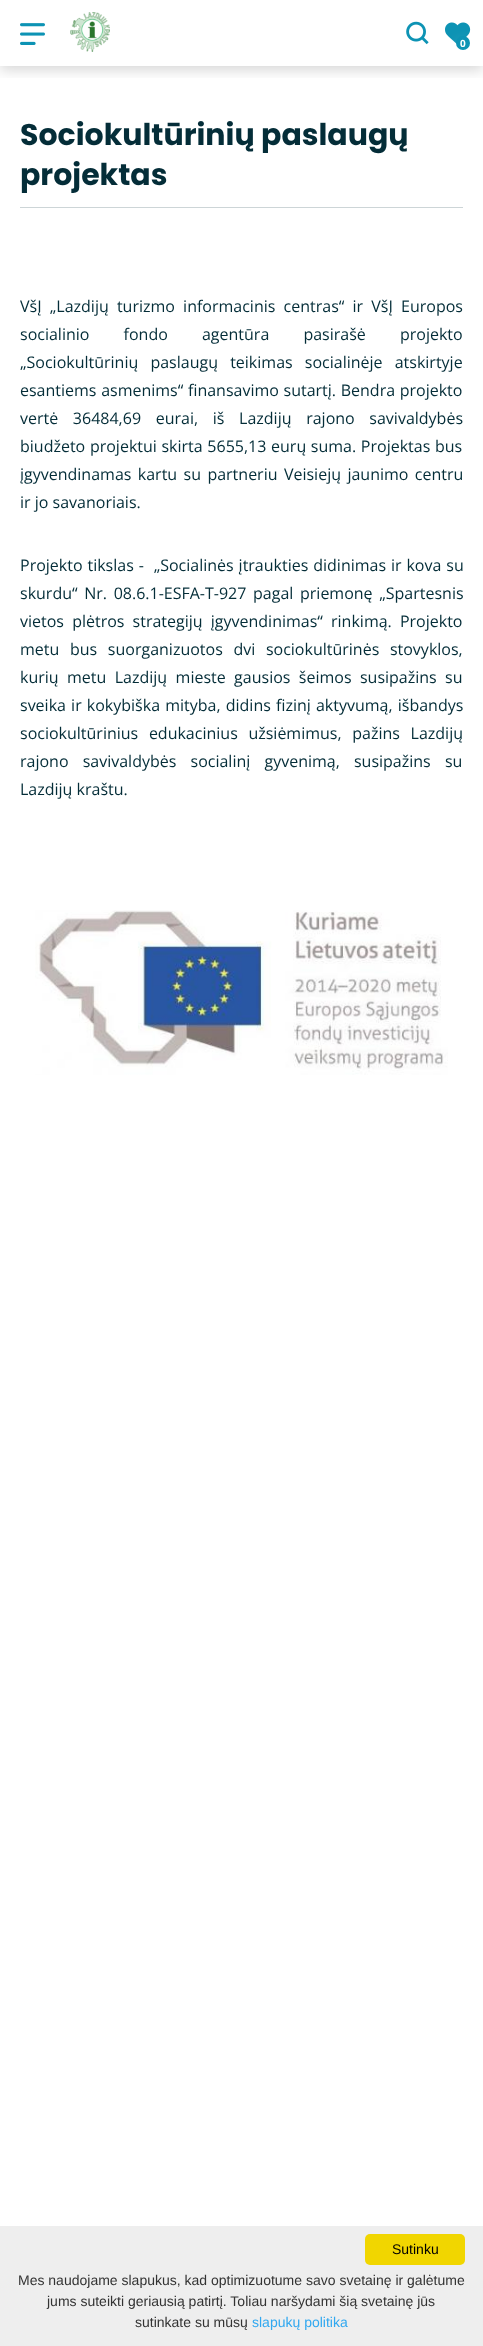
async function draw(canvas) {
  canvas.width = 483
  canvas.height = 2346
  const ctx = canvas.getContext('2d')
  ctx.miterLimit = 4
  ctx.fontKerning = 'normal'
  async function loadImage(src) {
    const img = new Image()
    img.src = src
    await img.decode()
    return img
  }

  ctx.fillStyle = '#fff'
  ctx.fillRect(0, 0, 483, 2346)
  ctx.save()
  ctx.beginPath()
  ctx.rect(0, 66, 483, 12)
  ctx.clip()
  ctx.fillStyle = '#00000029'
  ctx.filter = 'blur(7px)'
  ctx.beginPath()
  ctx.rect(0, 4, 483, 66)
  ctx.fill()
  ctx.filter = 'none'
  ctx.restore()
  ctx.drawImage(await loadImage('image0.png'), 20, 23, 25, 22)
  ctx.drawImage(await loadImage('image1.png'), 70, 12, 40, 40)
  ctx.drawImage(await loadImage('image2.png'), 406, 21, 23, 24)
  ctx.drawImage(await loadImage('image3.png'), 445, 22, 26, 22)
  ctx.fillStyle = '#ffffff29'
  ctx.filter = 'blur(7px)'
  ctx.beginPath()
  ctx.roundRect(456, 40, 14, 14, 7)
  ctx.fill()
  ctx.filter = 'none'
  ctx.fillStyle = '#0d93b4'
  ctx.beginPath()
  ctx.arc(463, 43, 7, 0, 2 * Math.PI)
  ctx.fill()
  ctx.font = 'bold 10px Open Sans'
  ctx.fillStyle = '#fff'
  ctx.fillText('0', 460, 47)
  ctx.font = 'bold 30px Poppins'
  ctx.fillStyle = '#042d38'
  ctx.fillText('Sociokultūrinių paslaugų', 20, 145)
  ctx.fillText('projektas', 20, 185)
  ctx.fillStyle = '#cdd5d7'
  ctx.fillRect(20, 207, 443, 1)
  ctx.wordSpacing = '4px'
  ctx.font = '16px Open Sans'
  ctx.fillStyle = '#042d38'
  ctx.fillText('VšĮ „Lazdijų turizmo informacinis centras“ ir VšĮ Europos', 20, 312)
  ctx.wordSpacing = '30px'
  ctx.fillText('socialinio fondo agentūra pasirašė projekto', 20, 340)
  ctx.wordSpacing = '8px'
  ctx.fillText('„Sociokultūrinių paslaugų teikimas socialinėje atskirtyje', 20, 368)
  ctx.wordSpacing = '0.5px'
  ctx.fillText('esantiems asmenims“ finansavimo sutartį. Bendra projekto', 20, 396)
  ctx.wordSpacing = '10.5px'
  ctx.fillText('vertė 36484,69 eurai, iš Lazdijų rajono savivaldybės', 20, 424)
  ctx.wordSpacing = '0.5px'
  ctx.fillText('biudžeto projektui skirta 5655,13 eurų suma. Projektas bus', 20, 452)
  ctx.wordSpacing = '2.25px'
  ctx.fillText('įgyvendinamas kartu su partneriu Veisiejų jaunimo centru', 20, 480)
  ctx.wordSpacing = '0px'
  ctx.fillText('ir jo savanoriais.', 20, 508)
  ctx.wordSpacing = '0.75px'
  ctx.fillText('Projekto tikslas -  „Socialinės įtraukties didinimas ir kova su', 20, 571)
  ctx.wordSpacing = '2.5px'
  ctx.fillText('skurdu“ Nr. 08.6.1-ESFA-T-927 pagal priemonę „Spartesnis', 20, 599)
  ctx.wordSpacing = '4px'
  ctx.fillText('vietos plėtros strategijų įgyvendinimas“ rinkimą. Projekto', 20, 627)
  ctx.wordSpacing = '6.5px'
  ctx.fillText('metu bus suorganizuotos dvi sociokultūrinės stovyklos,', 20, 655)
  ctx.wordSpacing = '4.25px'
  ctx.fillText('kurių metu Lazdijų mieste gausios šeimos susipažins su', 20, 683)
  ctx.wordSpacing = '1px'
  ctx.fillText('sveika ir kokybiška mityba, didins fizinį aktyvumą, išbandys', 20, 711)
  ctx.wordSpacing = '6.5px'
  ctx.fillText('sociokultūrinius edukacinius užsiėmimus, pažins Lazdijų', 20, 739)
  ctx.wordSpacing = '10px'
  ctx.fillText('rajono savivaldybės socialinį gyvenimą, susipažins su', 20, 767)
  ctx.wordSpacing = '0px'
  ctx.fillText('Lazdijų kraštu.', 20, 795)
  ctx.drawImage(await loadImage('image4.png'), 35, 910, 413, 165)
  ctx.fillStyle = '#eee'
  ctx.fillRect(0, 2226, 483, 120)
  ctx.fillStyle = '#f1d600'
  ctx.beginPath()
  ctx.roundRect(365, 2234, 100, 31, 5)
  ctx.fill()
  ctx.font = '14px Liberation Sans'
  ctx.fillStyle = '#000'
  ctx.fillText('Sutinku', 392, 2254)
  ctx.fillStyle = '#333'
  ctx.fillText('Mes naudojame slapukus, kad optimizuotume savo svetainę ir galėtume', 18, 2285)
  ctx.fillText('jums suteikti geriausią patirtį. Toliau naršydami šią svetainę jūs', 47, 2306)
  ctx.fillText('sutinkate su mūsų', 135, 2327)
  ctx.fillStyle = '#31a8f0'
  ctx.fillText('slapukų politika', 252, 2327)
}

draw(document.querySelector('canvas'))
